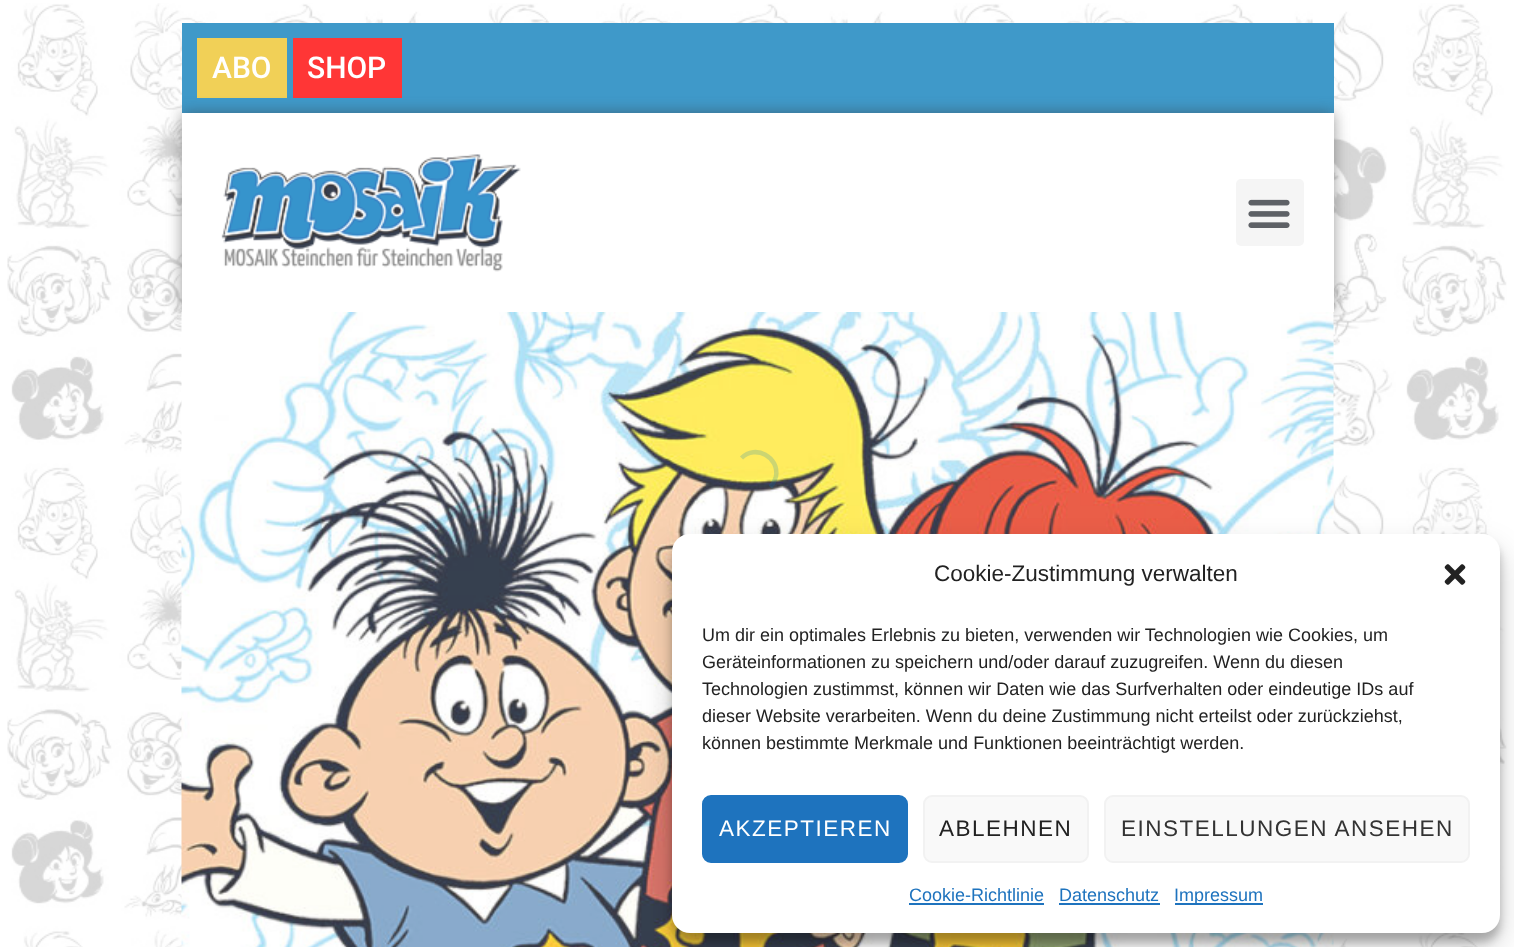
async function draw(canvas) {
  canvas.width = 1514
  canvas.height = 947
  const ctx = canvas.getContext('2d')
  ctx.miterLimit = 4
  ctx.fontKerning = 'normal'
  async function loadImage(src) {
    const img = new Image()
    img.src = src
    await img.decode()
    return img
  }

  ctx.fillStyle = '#fff'
  ctx.fillRect(0, 0, 1514, 947)
  ctx.drawImage(await loadImage('image0.png'), 7, 3, 1500, 944)
  ctx.fillStyle = '#3f99c9'
  ctx.fillRect(182, 23, 1152, 90)
  ctx.fillStyle = '#f1d057'
  ctx.fillRect(197, 38, 90, 60)
  ctx.font = '500 30px Roboto'
  ctx.fillStyle = '#fff'
  ctx.fillText('ABO', 212, 78)
  ctx.fillStyle = '#ff3636'
  ctx.fillRect(293, 38, 109, 60)
  ctx.fillStyle = '#fff'
  ctx.fillText('SHOP', 307, 78)
  ctx.fillStyle = '#36363680'
  ctx.filter = 'blur(7.5px)'
  ctx.beginPath()
  ctx.rect(182, 113, 1152, 199)
  ctx.fill()
  ctx.filter = 'none'
  ctx.fillStyle = '#fff'
  ctx.fillRect(182, 113, 1152, 199)
  ctx.drawImage(await loadImage('image1.png'), 221, 154, 300, 118)
  ctx.fillStyle = '#f5f5f5'
  ctx.beginPath()
  ctx.roundRect(1236, 179, 68, 67, 5)
  ctx.fill()
  ctx.drawImage(await loadImage('image2.png'), 1248, 199, 42, 29)
  ctx.drawImage(await loadImage('image3.png'), 181, 312, 1153, 635)
  ctx.beginPath()
  ctx.moveTo(741.5, 458)
  ctx.bezierCurveTo(755.5, 444, 779.5, 457, 776, 476.5)
  ctx.bezierCurveTo(775, 480.5, 773, 484, 770.5, 487)
  ctx.strokeStyle = '#0c7ebb36'
  ctx.lineWidth = 4.5
  ctx.stroke()
  ctx.fillStyle = '#0000003b'
  ctx.filter = 'blur(4.5px)'
  ctx.beginPath()
  ctx.roundRect(672, 543, 828, 399, 18)
  ctx.fill()
  ctx.filter = 'none'
  ctx.fillStyle = '#00000030'
  ctx.filter = 'blur(15px)'
  ctx.beginPath()
  ctx.roundRect(672, 549, 828, 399, 18)
  ctx.fill()
  ctx.filter = 'none'
  ctx.fillStyle = '#fff'
  ctx.beginPath()
  ctx.roundRect(672, 534, 828, 399, 18)
  ctx.fill()
  ctx.font = '22.5px Liberation Sans'
  ctx.fillStyle = '#222'
  ctx.fillText('Cookie-Zustimmung verwalten', 934, 581)
  ctx.drawImage(await loadImage('image4.png'), 1444, 564, 22, 21)
  ctx.font = '18px Liberation Sans'
  ctx.fillText('Um dir ein optimales Erlebnis zu bieten, verwenden wir Technologien wie Cookies, um', 702, 641)
  ctx.fillText('Geräteinformationen zu speichern und/oder darauf zuzugreifen. Wenn du diesen', 702, 668)
  ctx.fillText('Technologien zustimmst, können wir Daten wie das Surfverhalten oder eindeutige IDs auf', 702, 695)
  ctx.fillText('dieser Website verarbeiten. Wenn du deine Zustimmung nicht erteilst oder zurückziehst,', 702, 722)
  ctx.fillText('können bestimmte Merkmale und Funktionen beeinträchtigt werden.', 702, 749)
  ctx.fillStyle = '#1e73be'
  ctx.beginPath()
  ctx.roundRect(703, 796, 204, 66, 8)
  ctx.fill()
  ctx.strokeStyle = '#1e73be'
  ctx.lineWidth = 2
  ctx.stroke()
  ctx.letterSpacing = '1.5px'
  ctx.font = '22.5px Liberation Sans'
  ctx.fillStyle = '#fff'
  ctx.fillText('AKZEPTIEREN', 719, 836)
  ctx.fillStyle = '#f9f9f9'
  ctx.beginPath()
  ctx.roundRect(924, 796, 164, 66, 8)
  ctx.fill()
  ctx.strokeStyle = '#f2f2f2'
  ctx.stroke()
  ctx.fillStyle = '#222'
  ctx.fillText('ABLEHNEN', 939, 836)
  ctx.fillStyle = '#f9f9f9'
  ctx.beginPath()
  ctx.roundRect(1105, 796, 364, 66, 8)
  ctx.fill()
  ctx.stroke()
  ctx.fillStyle = '#333'
  ctx.fillText('EINSTELLUNGEN ANSEHEN', 1121, 836)
  ctx.letterSpacing = '0px'
  ctx.font = '18px Liberation Sans'
  ctx.fillStyle = '#1e73be'
  ctx.fillText('Cookie-Richtlinie', 909, 901)
  ctx.fillRect(909, 903, 135, 2)
  ctx.fillText('Datenschutz', 1059, 901)
  ctx.fillRect(1059, 903, 101, 2)
  ctx.fillRect(1175, 903, 88, 2)
  ctx.fillText('Impressum', 1174, 901)
}

draw(document.querySelector('canvas'))
